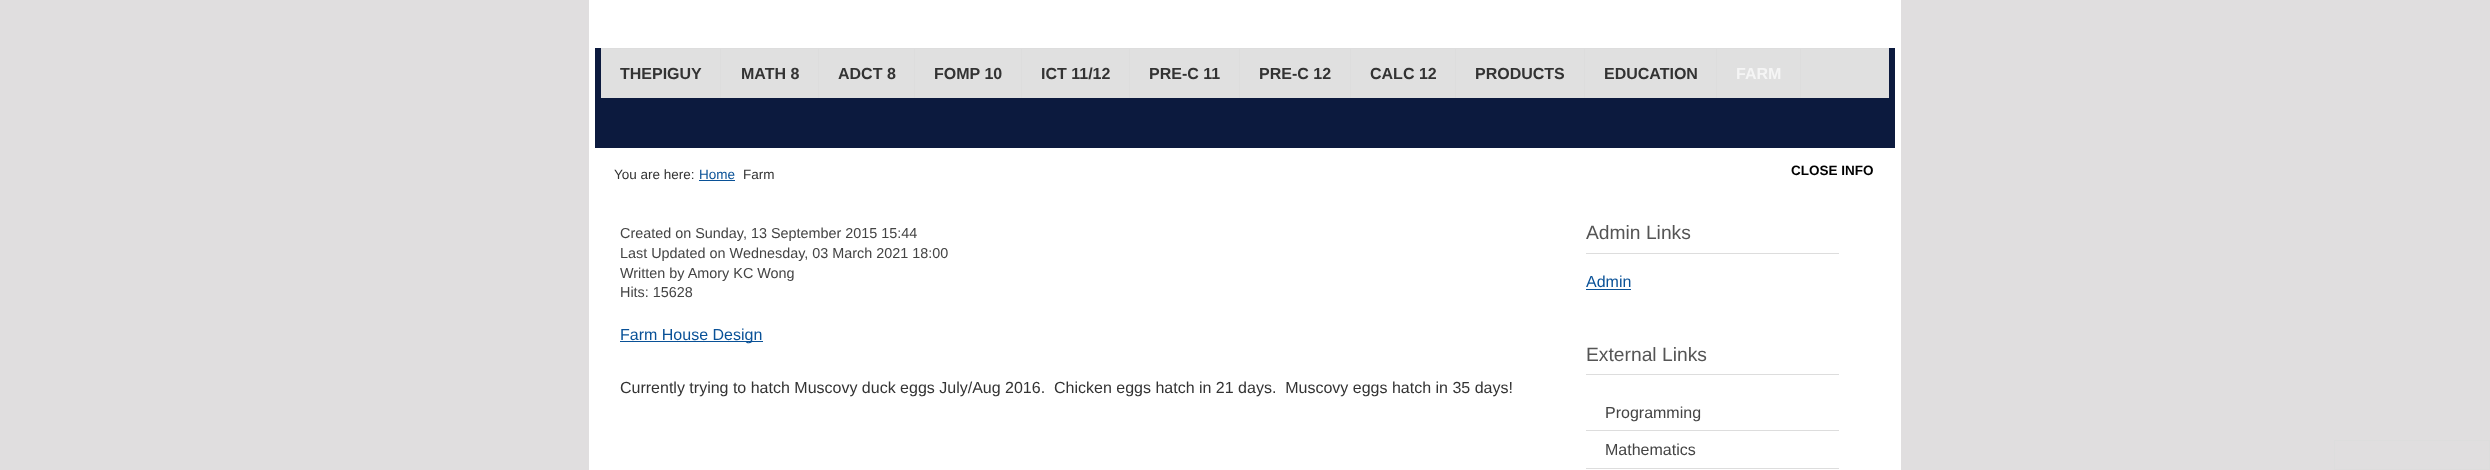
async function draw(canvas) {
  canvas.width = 2490
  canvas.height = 470
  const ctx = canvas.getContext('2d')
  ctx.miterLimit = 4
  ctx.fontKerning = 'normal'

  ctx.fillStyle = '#e0dedf'
  ctx.fillRect(0, 0, 2490, 470)
  ctx.fillStyle = '#fff'
  ctx.fillRect(589, 0, 1312, 470)
  ctx.fillStyle = '#0c1a3e'
  ctx.fillRect(595, 48, 1300, 100)
  ctx.fillStyle = '#e0e0e0'
  ctx.fillRect(601, 49, 1288, 49)
  ctx.fillStyle = '#ddd'
  ctx.fillRect(601, 48, 1288, 1)
  ctx.fillRect(720, 49, 1, 49)
  ctx.font = 'bold 16px Liberation Sans'
  ctx.fillStyle = '#333'
  ctx.fillText('THEPIGUY', 620, 79)
  ctx.fillStyle = '#ddd'
  ctx.fillRect(818, 49, 1, 49)
  ctx.fillStyle = '#333'
  ctx.fillText('MATH 8', 741, 79)
  ctx.fillStyle = '#ddd'
  ctx.fillRect(914, 49, 1, 49)
  ctx.fillStyle = '#333'
  ctx.fillText('ADCT 8', 838, 79)
  ctx.fillStyle = '#ddd'
  ctx.fillRect(1021, 49, 1, 49)
  ctx.fillStyle = '#333'
  ctx.fillText('FOMP 10', 934, 79)
  ctx.fillStyle = '#ddd'
  ctx.fillRect(1129, 49, 1, 49)
  ctx.fillStyle = '#333'
  ctx.fillText('ICT 11/12', 1041, 79)
  ctx.fillStyle = '#ddd'
  ctx.fillRect(1239, 49, 1, 49)
  ctx.fillStyle = '#333'
  ctx.fillText('PRE-C 11', 1149, 79)
  ctx.fillStyle = '#ddd'
  ctx.fillRect(1350, 49, 1, 49)
  ctx.fillStyle = '#333'
  ctx.fillText('PRE-C 12', 1259, 79)
  ctx.fillStyle = '#ddd'
  ctx.fillRect(1455, 49, 1, 49)
  ctx.fillStyle = '#333'
  ctx.fillText('CALC 12', 1370, 79)
  ctx.fillStyle = '#ddd'
  ctx.fillRect(1584, 49, 1, 49)
  ctx.fillStyle = '#333'
  ctx.fillText('PRODUCTS', 1475, 79)
  ctx.fillStyle = '#ddd'
  ctx.fillRect(1716, 49, 1, 49)
  ctx.fillStyle = '#333'
  ctx.fillText('EDUCATION', 1604, 79)
  ctx.fillStyle = '#ddd'
  ctx.fillRect(1800, 49, 1, 49)
  ctx.fillStyle = '#f5f5f5'
  ctx.fillText('FARM', 1736, 79)
  ctx.font = '13.5px Liberation Sans'
  ctx.fillStyle = '#333'
  ctx.fillText('You are here:', 614, 179)
  ctx.fillStyle = '#095197'
  ctx.fillText('Home', 699, 179)
  ctx.fillRect(699, 180, 36, 1)
  ctx.fillStyle = '#333'
  ctx.fillText('Farm', 743, 179)
  ctx.font = 'bold 13.5px Liberation Sans'
  ctx.fillStyle = '#000'
  ctx.fillText('CLOSE INFO', 1791, 175)
  ctx.font = '14.4px Liberation Sans'
  ctx.fillStyle = '#444'
  ctx.fillText('Created on Sunday, 13 September 2015 15:44', 620, 238)
  ctx.fillText('Last Updated on Wednesday, 03 March 2021 18:00', 620, 258)
  ctx.fillText('Written by Amory KC Wong', 620, 278)
  ctx.fillText('Hits: 15628', 620, 297)
  ctx.fillStyle = '#095197'
  ctx.fillRect(620, 341, 143, 1)
  ctx.font = '16px Liberation Sans'
  ctx.fillText('Farm House Design', 620, 340)
  ctx.fillStyle = '#333'
  ctx.fillText('Currently trying to hatch Muscovy duck eggs July/Aug 2016.  Chicken eggs hatch in 21 days.  Muscovy eggs hatch in 35 days!', 620, 393)
  ctx.fillStyle = '#ddd'
  ctx.fillRect(1586, 253, 253, 1)
  ctx.font = '19.25px Liberation Sans'
  ctx.fillStyle = '#555'
  ctx.fillText('Admin Links', 1586, 239)
  ctx.font = '16px Liberation Sans'
  ctx.fillStyle = '#095197'
  ctx.fillText('Admin', 1586, 287)
  ctx.fillRect(1586, 289, 45, 1)
  ctx.fillStyle = '#ddd'
  ctx.fillRect(1586, 374, 253, 1)
  ctx.font = '19.25px Liberation Sans'
  ctx.fillStyle = '#555'
  ctx.fillText('External Links', 1586, 361)
  ctx.fillStyle = '#ddd'
  ctx.fillRect(1586, 430, 253, 1)
  ctx.font = '16px Liberation Sans'
  ctx.fillStyle = '#444'
  ctx.fillText('Programming', 1605, 418)
  ctx.fillStyle = '#ddd'
  ctx.fillRect(1586, 468, 253, 1)
  ctx.fillStyle = '#444'
  ctx.fillText('Mathematics', 1605, 455)
  ctx.fillStyle = '#ddd'
  ctx.fillRect(2334, 440, 156, 1)
  ctx.fillRect(2489, 440, 1, 30)
  ctx.fillRect(2334, 469, 156, 1)
  ctx.fillRect(2334, 440, 1, 30)
}

draw(document.querySelector('canvas'))
